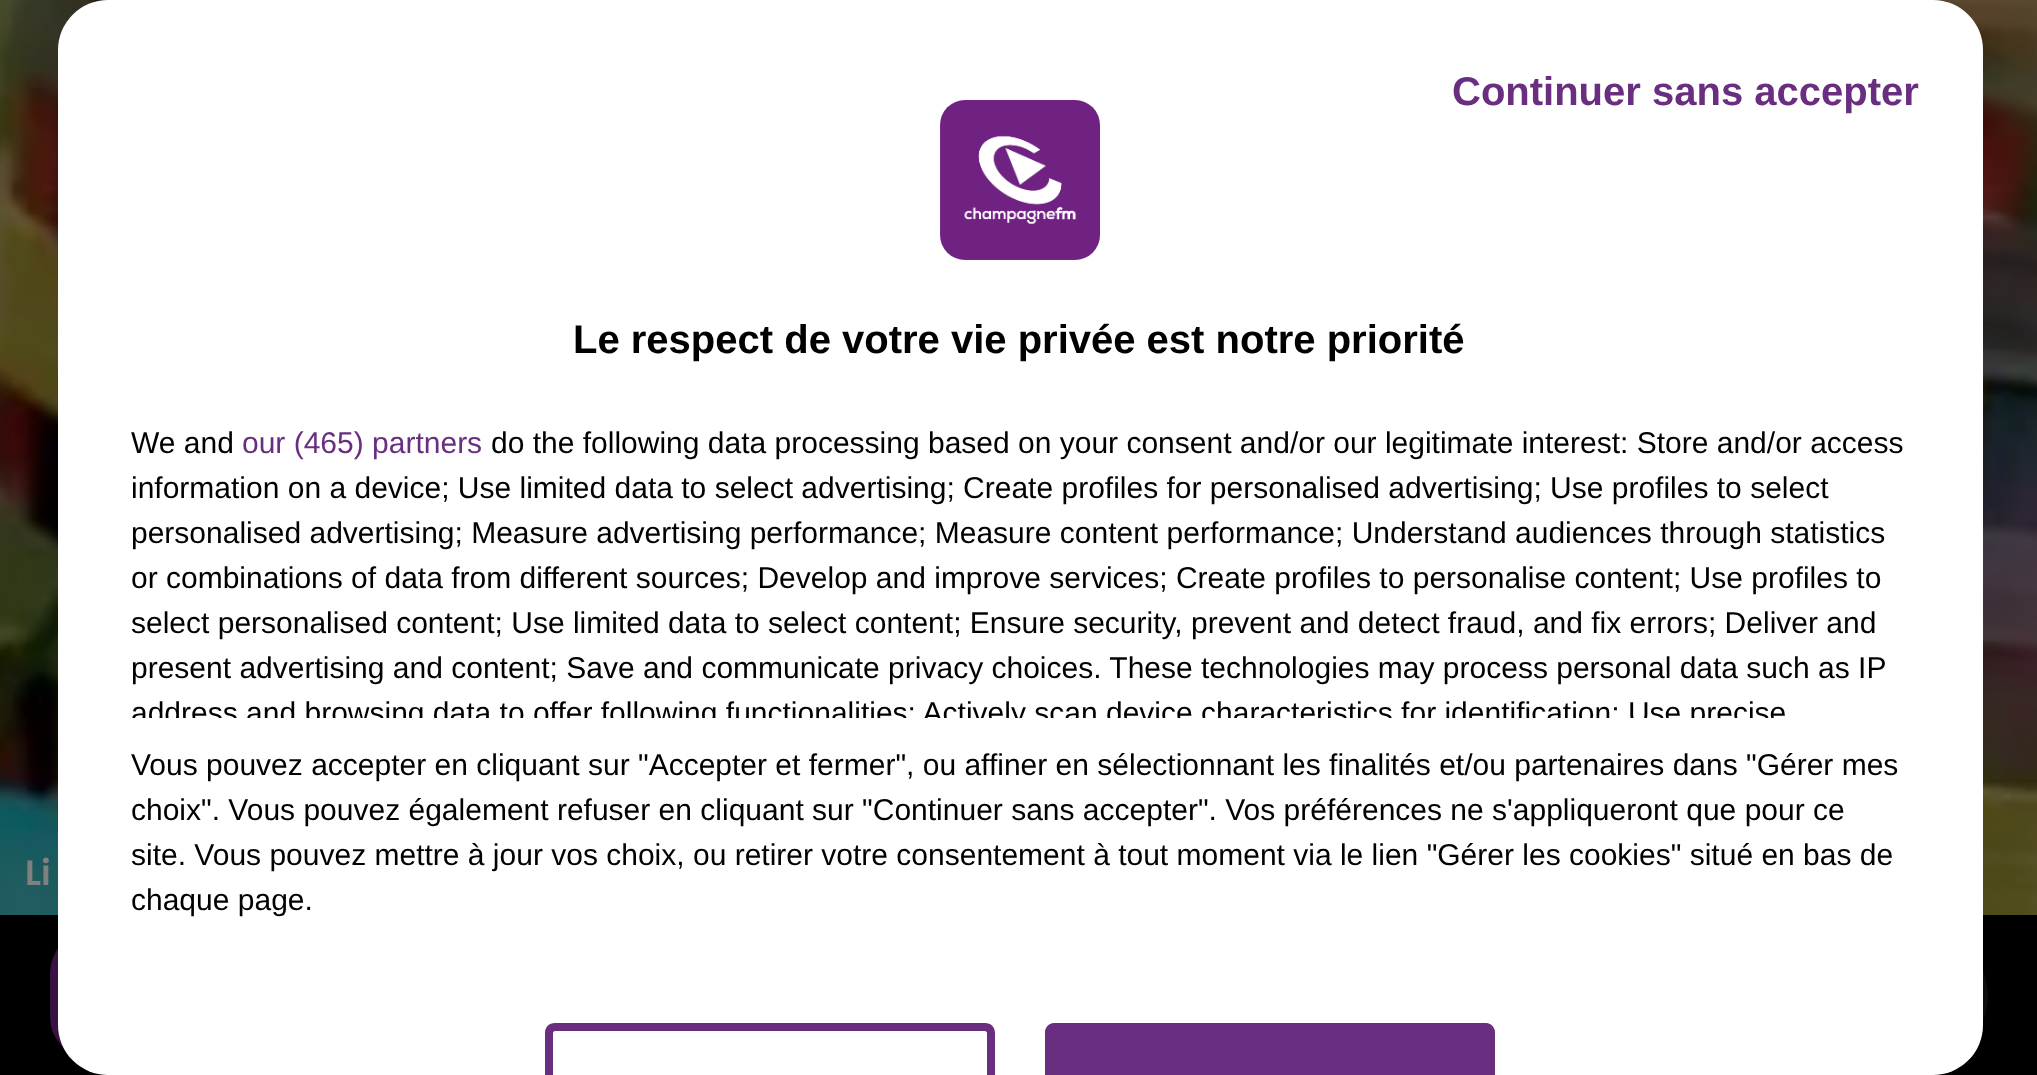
async function draw(canvas) {
  canvas.width = 2037
  canvas.height = 1075
  const ctx = canvas.getContext('2d')
  ctx.miterLimit = 4
  ctx.fontKerning = 'normal'
  async function loadImage(src) {
    const img = new Image()
    img.src = src
    await img.decode()
    return img
  }

  ctx.fillStyle = '#fff'
  ctx.fillRect(0, 0, 2037, 1075)
  ctx.drawImage(await loadImage('image0.png'), 0, 0, 2037, 915)
  ctx.font = '600 35px Poppins'
  ctx.fillStyle = '#808080'
  ctx.fillText('Li', 25, 885)
  ctx.fillStyle = '#000'
  ctx.fillRect(0, 915, 2037, 160)
  ctx.drawImage(await loadImage('image1.png'), 50, 948, 15, 101)
  ctx.fillStyle = '#0d0d0d'
  ctx.beginPath()
  ctx.arc(1925.5, 995.5, 62.5, 0, 2 * Math.PI)
  ctx.fill()
  ctx.fillStyle = '#fff'
  ctx.beginPath()
  ctx.roundRect(58, 0, 1925, 1075, 50)
  ctx.fill()
  ctx.font = 'bold 40px Liberation Sans'
  ctx.fillStyle = '#692e7f'
  ctx.fillText('Continuer sans accepter', 1452, 105)
  ctx.beginPath()
  ctx.moveTo(555, 1023)
  ctx.bezierCurveTo(549, 1023, 545, 1027, 545, 1033)
  ctx.lineTo(545, 1075)
  ctx.lineTo(553, 1075)
  ctx.lineTo(553, 1033)
  ctx.bezierCurveTo(553, 1032, 554, 1031, 555, 1031)
  ctx.lineTo(985, 1031)
  ctx.bezierCurveTo(986, 1031, 987, 1032, 987, 1033)
  ctx.lineTo(987, 1075)
  ctx.lineTo(995, 1075)
  ctx.lineTo(995, 1033)
  ctx.bezierCurveTo(995, 1027, 991, 1023, 985, 1023)
  ctx.closePath()
  ctx.fill()
  ctx.beginPath()
  ctx.roundRect(1045, 1023, 450, 52, [10, 10, 0, 0])
  ctx.fill()
  ctx.beginPath()
  ctx.moveTo(1055, 1023)
  ctx.bezierCurveTo(1049, 1023, 1045, 1027, 1045, 1033)
  ctx.lineTo(1045, 1075)
  ctx.lineTo(1053, 1075)
  ctx.lineTo(1053, 1033)
  ctx.bezierCurveTo(1053, 1032, 1054, 1031, 1055, 1031)
  ctx.lineTo(1485, 1031)
  ctx.bezierCurveTo(1486, 1031, 1487, 1032, 1487, 1033)
  ctx.lineTo(1487, 1075)
  ctx.lineTo(1495, 1075)
  ctx.lineTo(1495, 1033)
  ctx.bezierCurveTo(1495, 1027, 1491, 1023, 1485, 1023)
  ctx.closePath()
  ctx.fill()
  ctx.drawImage(await loadImage('image2.png'), 940, 100, 160, 160)
  ctx.fillStyle = '#000'
  ctx.fillText('Le respect de votre vie privée est notre priorité', 573, 353)
  ctx.font = '30px Liberation Sans'
  ctx.fillText('We and', 131, 453)
  ctx.fillStyle = '#692e7f'
  ctx.fillText('our (465) partners', 242, 453)
  ctx.fillStyle = '#000'
  ctx.fillText('do the following data processing based on your consent and/or our legitimate interest: Store and/or access', 491, 453)
  ctx.fillText('information on a device; Use limited data to select advertising; Create profiles for personalised advertising; Use profiles to select', 131, 498)
  ctx.fillText('personalised advertising; Measure advertising performance; Measure content performance; Understand audiences through statistics', 131, 543)
  ctx.fillText('or combinations of data from different sources; Develop and improve services; Create profiles to personalise content; Use profiles to', 131, 588)
  ctx.fillText('select personalised content; Use limited data to select content; Ensure security, prevent and detect fraud, and fix errors; Deliver and', 131, 633)
  ctx.fillText('present advertising and content; Save and communicate privacy choices. These technologies may process personal data such as IP', 131, 678)
  ctx.save()
  ctx.beginPath()
  ctx.rect(108, 395, 1825, 323)
  ctx.clip()
  ctx.fillText('address and browsing data to offer following functionalities: Actively scan device characteristics for identification; Use precise', 131, 723)
  ctx.restore()
  ctx.fillText('Vous pouvez accepter en cliquant sur "Accepter et fermer", ou affiner en sélectionnant les finalités et/ou partenaires dans "Gérer mes', 131, 775)
  ctx.fillText('choix". Vous pouvez également refuser en cliquant sur "Continuer sans accepter". Vos préférences ne s\'appliqueront que pour ce', 131, 820)
  ctx.fillText('site. Vous pouvez mettre à jour vos choix, ou retirer votre consentement à tout moment via le lien "Gérer les cookies" situé en bas de', 131, 865)
  ctx.fillText('chaque page.', 131, 910)
}

draw(document.querySelector('canvas'))
